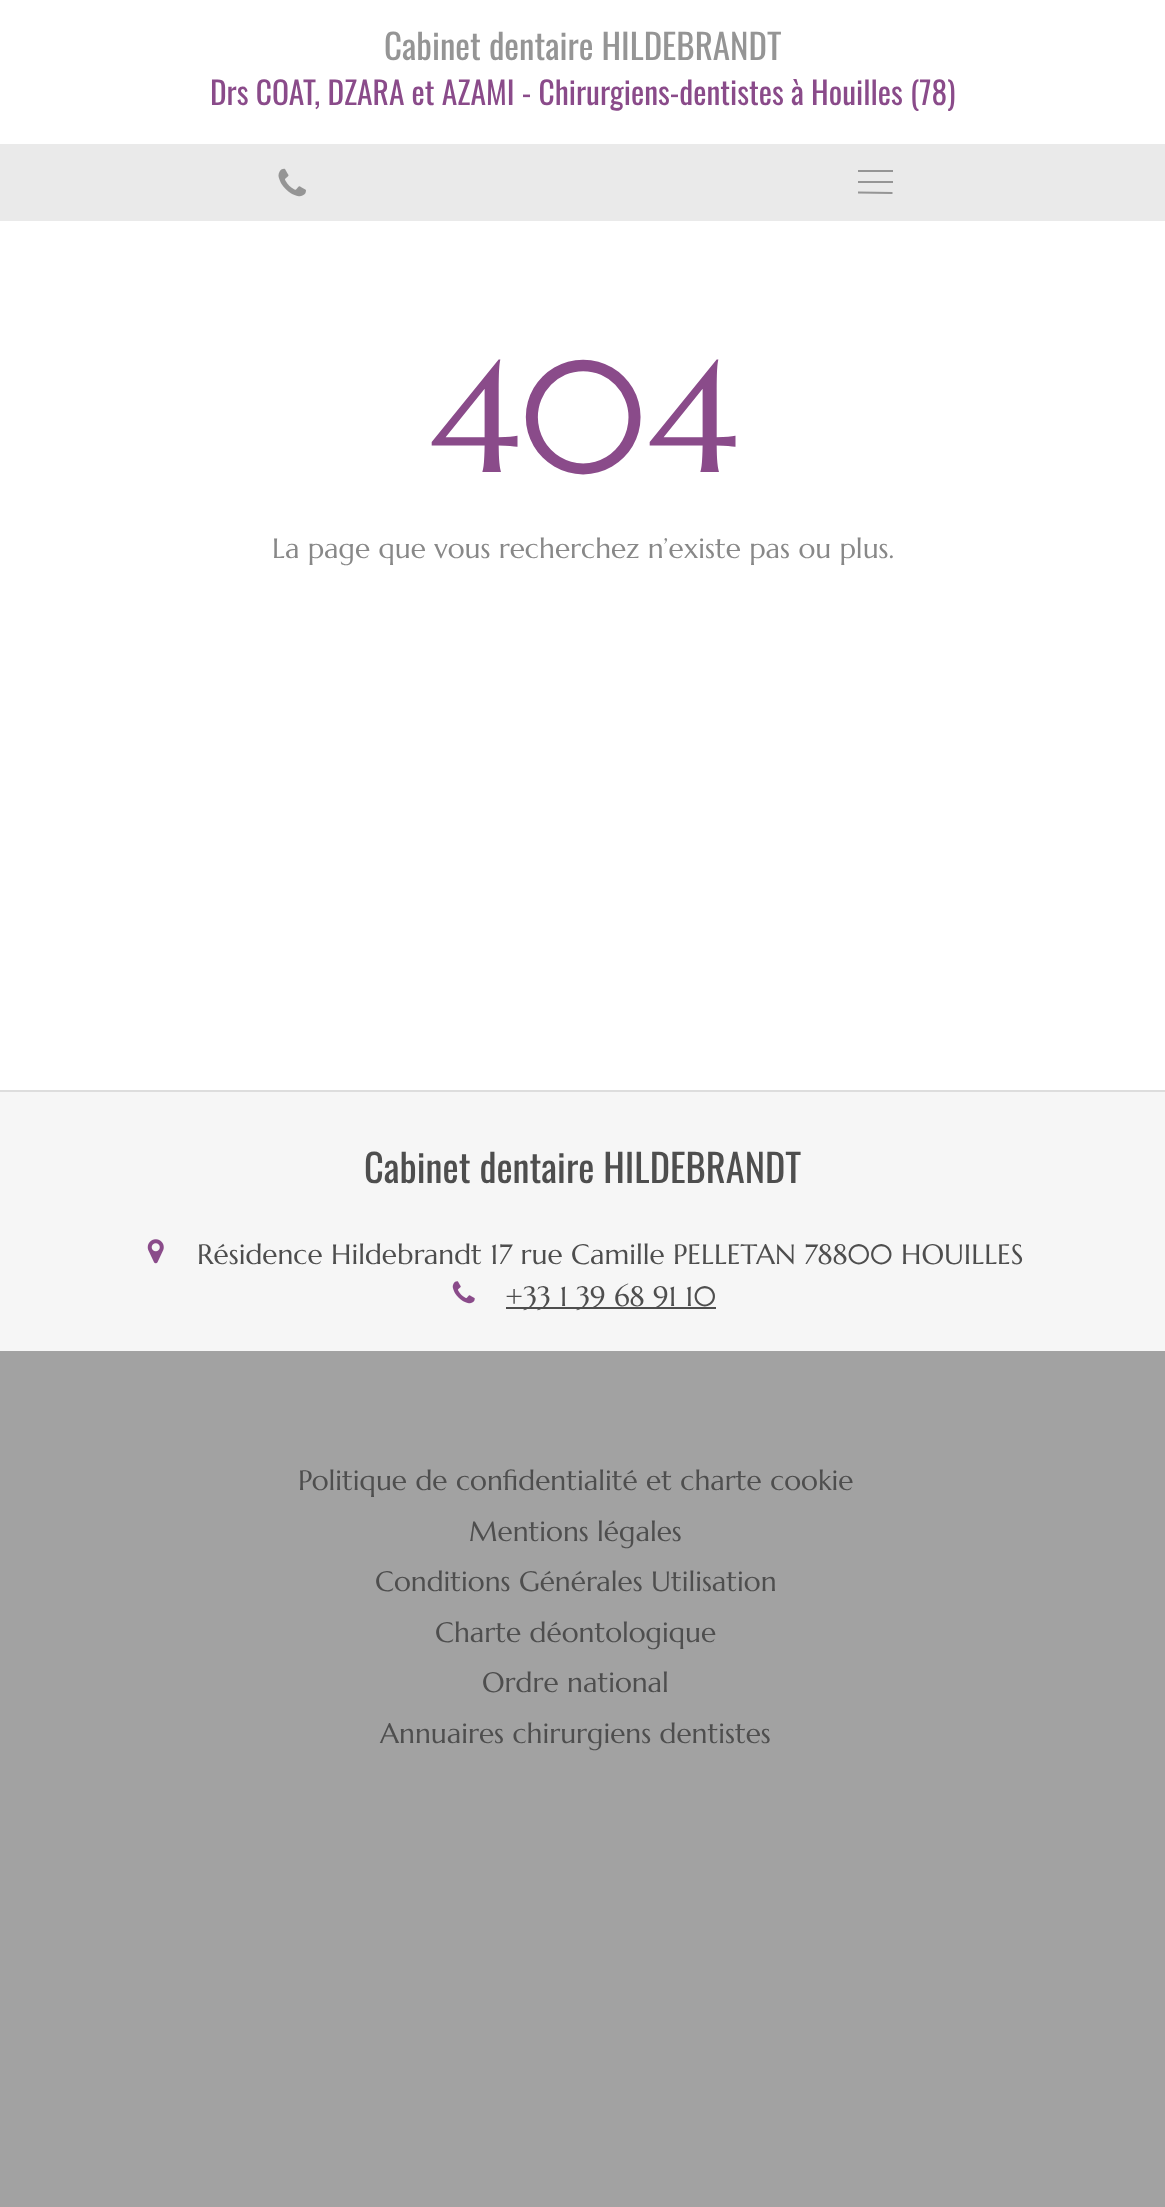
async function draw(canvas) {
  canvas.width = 1165
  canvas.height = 2207
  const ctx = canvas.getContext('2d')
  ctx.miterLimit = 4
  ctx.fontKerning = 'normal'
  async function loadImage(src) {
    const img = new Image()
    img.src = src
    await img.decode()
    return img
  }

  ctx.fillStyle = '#fff'
  ctx.fillRect(0, 0, 1165, 2207)
  ctx.font = '35px Oswald'
  ctx.fillStyle = '#959595'
  ctx.fillText('Cabinet dentaire HILDEBRANDT', 384, 60)
  ctx.font = '31.5px Oswald'
  ctx.fillStyle = '#8a4b8a'
  ctx.fillText('Drs COAT, DZARA et AZAMI - Chirurgiens-dentistes à Houilles (78)', 210, 105)
  ctx.fillStyle = '#eaeaea'
  ctx.fillRect(0, 144, 1165, 77)
  ctx.drawImage(await loadImage('image0.png'), 278, 168, 28, 29)
  ctx.fillStyle = '#959595'
  ctx.fillRect(858, 170, 35, 2)
  ctx.fillRect(858, 181, 35, 2)
  ctx.save()
  ctx.beginPath()
  ctx.rect(858, 165, 35, 35)
  ctx.clip()
  ctx.beginPath()
  ctx.moveTo(857.5, 192.5)
  ctx.lineTo(892.5, 193)
  ctx.strokeStyle = '#959595'
  ctx.lineWidth = 2.1
  ctx.stroke()
  ctx.restore()
  ctx.font = '158px Marcellus'
  ctx.fillStyle = '#8a4b8a'
  ctx.fillText('404', 429, 472)
  ctx.font = '28px Marcellus'
  ctx.fillStyle = '#888'
  ctx.fillText('La page que vous recherchez n’existe pas ou plus.', 272, 558)
  ctx.fillStyle = '#ddd'
  ctx.fillRect(0, 1090, 1165, 2)
  ctx.fillStyle = '#f6f6f6'
  ctx.fillRect(0, 1092, 1165, 259)
  ctx.font = '38.5px Oswald'
  ctx.fillStyle = '#4e4e4e'
  ctx.fillText('Cabinet dentaire HILDEBRANDT', 364, 1183)
  ctx.drawImage(await loadImage('image1.png'), 147, 1239, 17, 25)
  ctx.font = '28px Marcellus'
  ctx.fillText('Résidence Hildebrandt 17 rue Camille PELLETAN 78800 HOUILLES', 197, 1264)
  ctx.drawImage(await loadImage('image2.png'), 452, 1281, 23, 23)
  ctx.fillRect(506, 1307, 210, 2)
  ctx.fillText('+33 1 39 68 91 10', 505, 1306)
  ctx.fillStyle = '#a2a2a2'
  ctx.fillRect(0, 1351, 1165, 856)
  ctx.fillStyle = '#4e4e4e'
  ctx.fillText('Politique de confidentialité et charte cookie', 298, 1490)
  ctx.fillText('Mentions légales', 469, 1541)
  ctx.fillText('Conditions Générales Utilisation', 375, 1591)
  ctx.fillText('Charte déontologique', 435, 1642)
  ctx.fillText('Ordre national', 482, 1692)
  ctx.fillText('Annuaires chirurgiens dentistes', 380, 1743)
}

draw(document.querySelector('canvas'))
